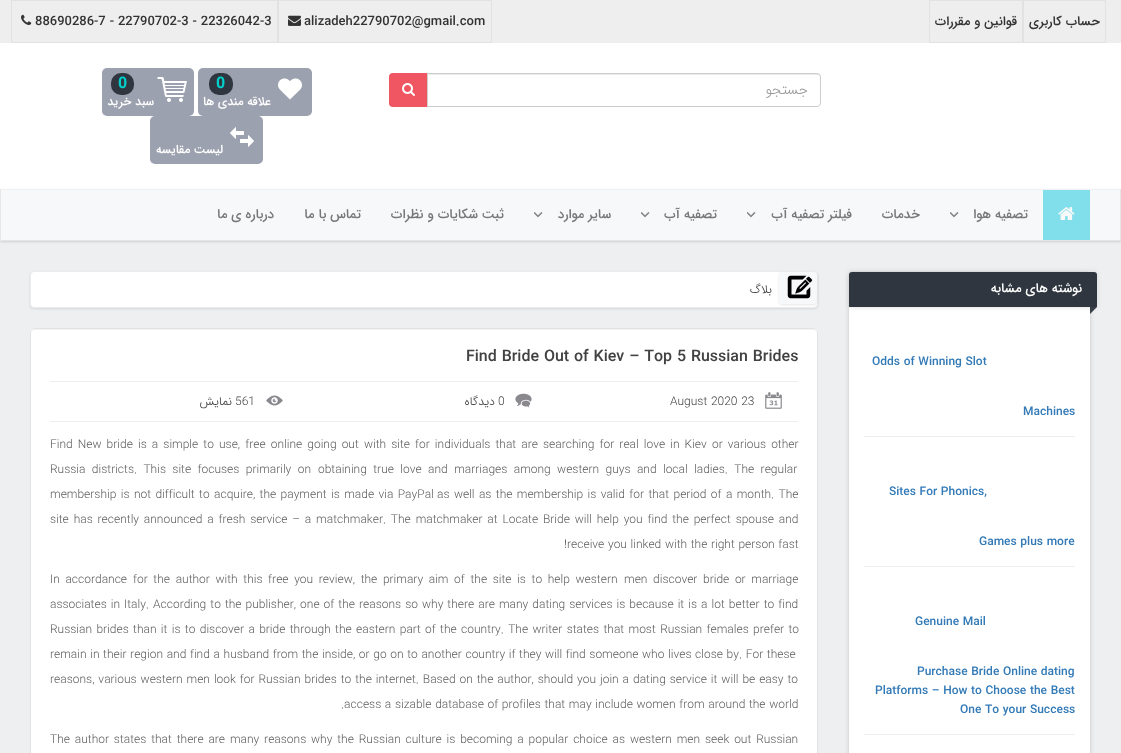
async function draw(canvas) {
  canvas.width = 1121
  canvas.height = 753
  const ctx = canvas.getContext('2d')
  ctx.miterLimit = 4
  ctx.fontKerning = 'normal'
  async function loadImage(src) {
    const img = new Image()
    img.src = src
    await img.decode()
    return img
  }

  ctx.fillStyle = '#fff'
  ctx.fillRect(0, 0, 1121, 753)
  ctx.fillStyle = '#eee'
  ctx.fillRect(0, 0, 1121, 43)
  ctx.strokeStyle = '#e3e1e1'
  ctx.strokeRect(11.5, 0.5, 266, 42)
  ctx.drawImage(await loadImage('image0.png'), 21, 14, 11, 11)
  ctx.font = '500 13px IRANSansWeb'
  ctx.fillStyle = '#333'
  ctx.fillText('88690286-7 - 22790702-3 - 22326042-3', 35, 25)
  ctx.strokeRect(278.5, 0.5, 213, 42)
  ctx.drawImage(await loadImage('image1.png'), 288, 15, 13, 11)
  ctx.fillText('alizadeh22790702@gmail.com', 304, 25)
  ctx.strokeRect(929.5, 0.5, 93, 42)
  ctx.direction = 'rtl'
  ctx.fillText('قوانین و مقررات', 1017, 25)
  ctx.strokeRect(1023.5, 0.5, 82, 42)
  ctx.fillText('حساب کاربری', 1100, 25)
  ctx.fillStyle = '#9ba1ae'
  ctx.beginPath()
  ctx.roundRect(102, 68, 92, 48, 5)
  ctx.fill()
  ctx.fillStyle = '#2f3640'
  ctx.beginPath()
  ctx.roundRect(111, 73, 23, 22, 10)
  ctx.fill()
  ctx.direction = 'ltr'
  ctx.font = 'bold 16px IRANSansWeb'
  ctx.fillStyle = '#01cfca'
  ctx.fillText('0', 118, 88)
  ctx.drawImage(await loadImage('image2.png'), 157, 77, 30, 25)
  ctx.direction = 'rtl'
  ctx.font = '500 12px IRANSansWeb'
  ctx.fillStyle = '#fff'
  ctx.fillText('سبد خرید', 154, 105)
  ctx.fillStyle = '#9ba1ae'
  ctx.beginPath()
  ctx.roundRect(198, 68, 114, 48, 5)
  ctx.fill()
  ctx.fillStyle = '#2f3640'
  ctx.beginPath()
  ctx.roundRect(209, 73, 24, 22, 10)
  ctx.fill()
  ctx.direction = 'ltr'
  ctx.font = 'bold 16px IRANSansWeb'
  ctx.fillStyle = '#01cfca'
  ctx.fillText('0', 216, 88)
  ctx.drawImage(await loadImage('image3.png'), 278, 78, 24, 22)
  ctx.direction = 'rtl'
  ctx.font = '500 12px IRANSansWeb'
  ctx.fillStyle = '#fff'
  ctx.fillText('علاقه مندی ها', 271, 105)
  ctx.fillStyle = '#9ba1ae'
  ctx.beginPath()
  ctx.roundRect(150, 116, 113, 48, 5)
  ctx.fill()
  ctx.drawImage(await loadImage('image4.png'), 230, 127, 24, 20)
  ctx.fillStyle = '#fff'
  ctx.fillText('لیست مقایسه', 223, 153)
  ctx.fillStyle = '#ef5661'
  ctx.beginPath()
  ctx.roundRect(389, 73, 39, 34, [4, 0, 0, 4])
  ctx.fill()
  ctx.drawImage(await loadImage('image5.png'), 402, 83, 13, 13)
  ctx.fillStyle = '#fff'
  ctx.beginPath()
  ctx.roundRect(427, 73, 394, 34, [0, 4, 4, 0])
  ctx.fill()
  ctx.fillStyle = '#ececec'
  ctx.beginPath()
  ctx.moveTo(428, 75)
  ctx.lineTo(817, 75)
  ctx.bezierCurveTo(819, 75, 820, 76, 820, 78)
  ctx.lineTo(820, 77)
  ctx.bezierCurveTo(820, 75, 819, 74, 817, 74)
  ctx.lineTo(428, 74)
  ctx.closePath()
  ctx.fill()
  ctx.beginPath()
  ctx.roundRect(427.5, 73.5, 393, 33, [0, 3.5, 3.5, 0])
  ctx.strokeStyle = '#ccc'
  ctx.stroke()
  ctx.font = '300 14px IRANSansWeb'
  ctx.fillStyle = '#999'
  ctx.fillText('جستجو', 808, 94)
  ctx.fillStyle = '#eeeff1'
  ctx.fillRect(0, 241, 1121, 512)
  ctx.fillStyle = '#0000001f'
  ctx.filter = 'blur(1px)'
  ctx.beginPath()
  ctx.rect(0, 190, 1121, 52)
  ctx.fill()
  ctx.filter = 'none'
  ctx.fillStyle = '#f7f8fa'
  ctx.fillRect(1, 190, 1119, 50)
  ctx.fillStyle = '#eff0f2'
  ctx.fillRect(0, 189, 1121, 1)
  ctx.fillStyle = '#e7e7e7'
  ctx.fillRect(1120, 189, 1, 52)
  ctx.fillStyle = '#e3e4e5'
  ctx.fillRect(0, 240, 1121, 1)
  ctx.fillStyle = '#e7e7e7'
  ctx.fillRect(0, 189, 1, 52)
  ctx.font = '500 13.25px IRANSansWeb'
  ctx.fillStyle = '#777'
  ctx.fillText('درباره ی ما', 274, 218)
  ctx.fillText('تماس با ما', 361, 218)
  ctx.fillText('ثبت شکایات و نظرات', 504, 218)
  ctx.drawImage(await loadImage('image6.png'), 534, 212, 9, 6)
  ctx.fillText('سایر موارد', 611, 218)
  ctx.drawImage(await loadImage('image6.png'), 641, 212, 9, 6)
  ctx.fillText('تصفیه آب', 717, 218)
  ctx.drawImage(await loadImage('image6.png'), 747, 212, 9, 6)
  ctx.fillText('فیلتر تصفیه آب', 852, 218)
  ctx.fillText('خدمات', 920, 218)
  ctx.drawImage(await loadImage('image6.png'), 950, 212, 9, 6)
  ctx.fillText('تصفیه هوا', 1028, 218)
  ctx.fillStyle = '#80dfeb'
  ctx.fillRect(1043, 190, 47, 50)
  ctx.drawImage(await loadImage('image7.png'), 1058, 207, 17, 13)
  ctx.fillStyle = '#0000001a'
  ctx.filter = 'blur(1px)'
  ctx.beginPath()
  ctx.roundRect(30, 272, 788, 37, 4)
  ctx.fill()
  ctx.filter = 'none'
  ctx.fillStyle = '#fff'
  ctx.beginPath()
  ctx.roundRect(30.5, 271.5, 787, 36, 3.5)
  ctx.fill()
  ctx.strokeStyle = '#ebeced'
  ctx.stroke()
  ctx.font = '300 12px IRANSansWeb'
  ctx.fillStyle = '#424242'
  ctx.fillText('بلاگ', 772, 293)
  ctx.fillStyle = '#0000001a'
  ctx.filter = 'blur(1px)'
  ctx.beginPath()
  ctx.roundRect(779, 273, 38, 32, 4)
  ctx.fill()
  ctx.filter = 'none'
  ctx.fillStyle = '#f7f8fa'
  ctx.beginPath()
  ctx.roundRect(779, 272, 38, 32, [0, 4, 4, 0])
  ctx.fill()
  ctx.drawImage(await loadImage('image8.png'), 787, 275, 26, 24)
  ctx.fillStyle = '#fff'
  ctx.beginPath()
  ctx.roundRect(30, 328, 788, 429, 4)
  ctx.fill()
  ctx.fillStyle = '#f2f2f2'
  ctx.beginPath()
  ctx.moveTo(34, 330)
  ctx.lineTo(814, 330)
  ctx.bezierCurveTo(816, 330, 817, 331, 817, 333)
  ctx.bezierCurveTo(817, 331, 816, 329, 814, 329)
  ctx.lineTo(34, 329)
  ctx.bezierCurveTo(32, 329, 31, 331, 31, 333)
  ctx.bezierCurveTo(31, 331, 32, 330, 34, 330)
  ctx.closePath()
  ctx.fill()
  ctx.beginPath()
  ctx.roundRect(30.5, 328.5, 787, 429, 3.5)
  ctx.strokeStyle = '#e3e3e3'
  ctx.stroke()
  ctx.direction = 'ltr'
  ctx.font = '500 16px IRANSansWeb'
  ctx.fillStyle = '#424242'
  ctx.fillText('Find Bride Out of Kiev – Top 5 Russian Brides', 466, 361)
  ctx.fillStyle = '#eee'
  ctx.fillRect(50, 381, 748, 1)
  ctx.direction = 'rtl'
  ctx.font = '300 12px IRANSansWeb'
  ctx.fillStyle = '#424242'
  ctx.fillText('نمایش', 232, 405)
  ctx.direction = 'ltr'
  ctx.fillText('561', 235, 405)
  ctx.drawImage(await loadImage('image9.png'), 266, 395, 17, 11)
  ctx.direction = 'rtl'
  ctx.fillText('دیدگاه', 495, 405)
  ctx.direction = 'ltr'
  ctx.fillText('0', 498, 405)
  ctx.drawImage(await loadImage('image10.png'), 515, 393, 17, 15)
  ctx.fillText('August 2020 23', 670, 405)
  ctx.drawImage(await loadImage('image11.png'), 765, 392, 17, 17)
  ctx.fillStyle = '#eee'
  ctx.fillRect(50, 421, 748, 1)
  ctx.wordSpacing = '1.45px'
  ctx.fillStyle = '#5d5d5d'
  ctx.fillText('Find New bride is a simple to use, free online going out with site for individuals that are searching for real love in Kiev or various other', 50, 448)
  ctx.wordSpacing = '2.75px'
  ctx.fillText('Russia districts. This site focuses primarily on', 50, 473)
  ctx.fillText('obtaining true love and marriages among western guys and local ladies. The regular', 318, 473)
  ctx.wordSpacing = '0.75px'
  ctx.fillText('membership is not difficult to acquire, the payment is made via PayPal', 50, 498)
  ctx.fillText('as well as the membership is valid for that period of a month. The', 437, 498)
  ctx.wordSpacing = '1.2px'
  ctx.fillText('site has recently announced a fresh service – a matchmaker. The matchmaker at Locate Bride will help you find the perfect spouse and', 50, 523)
  ctx.wordSpacing = '0px'
  ctx.fillText('!receive you linked with the right person fast', 564, 548)
  ctx.wordSpacing = '2px'
  ctx.fillText('In accordance', 50, 583)
  ctx.fillText('for the author with this free you review, the primary aim of the site is to help western', 133, 583)
  ctx.fillText('men discover bride or marriage', 624, 583)
  ctx.wordSpacing = '0.4px'
  ctx.fillText('associates in Italy. According to the publisher, one of the reasons so why there are many dating services is because it is a lot better to find', 50, 608)
  ctx.wordSpacing = '0.7px'
  ctx.fillText('Russian brides than it is to discover a bride through the eastern part of the country. The writer states that most Russian females prefer to', 50, 633)
  ctx.wordSpacing = '0px'
  ctx.fillText('remain in their region and find a husband from the inside, or go on to another country if they will find someone who lives close by. For these', 50, 658)
  ctx.wordSpacing = '0.3px'
  ctx.fillText('reasons, various western men look for Russian brides to the internet. Based on the author, should you join a dating service it will be easy to', 50, 683)
  ctx.wordSpacing = '0px'
  ctx.fillText('.access a sizable database of profiles that may include women from around the world', 341, 708)
  ctx.wordSpacing = '1.2px'
  ctx.fillText('The author states that there are many reasons why the Russian culture is becoming a popular choice as western men seek out Russian', 50, 743)
  ctx.fillStyle = '#0000001a'
  ctx.filter = 'blur(2px)'
  ctx.beginPath()
  ctx.roundRect(848, 273, 243, 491, 5)
  ctx.fill()
  ctx.filter = 'none'
  ctx.fillStyle = '#fff'
  ctx.beginPath()
  ctx.roundRect(848.5, 271.5, 242, 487, 4.5)
  ctx.fill()
  ctx.strokeStyle = '#ddd'
  ctx.stroke()
  ctx.fillStyle = '#d4d4d4'
  ctx.filter = 'blur(2.5px)'
  ctx.beginPath()
  ctx.roundRect(849, 272, 248, 35, 3)
  ctx.fill()
  ctx.filter = 'none'
  ctx.fillStyle = '#2f3640'
  ctx.beginPath()
  ctx.roundRect(849, 272, 248, 35, [3, 3, 0, 0])
  ctx.fill()
  ctx.wordSpacing = '0px'
  ctx.direction = 'rtl'
  ctx.font = '500 13px IRANSansWeb'
  ctx.fillStyle = '#fff'
  ctx.fillText('نوشته های مشابه', 1082, 292)
  ctx.fillStyle = '#373d49'
  ctx.beginPath()
  ctx.moveTo(1090, 307)
  ctx.lineTo(1097, 307)
  ctx.lineTo(1090, 314)
  ctx.closePath()
  ctx.fill()
  ctx.fillStyle = '#eee'
  ctx.fillRect(864, 436, 211, 1)
  ctx.direction = 'ltr'
  ctx.font = '500 12px IRANSansWeb'
  ctx.fillStyle = '#337ab7'
  ctx.fillText('Odds of Winning Slot', 872, 365)
  ctx.fillText('Machines', 1023, 415)
  ctx.fillStyle = '#eee'
  ctx.fillRect(864, 566, 211, 1)
  ctx.fillStyle = '#337ab7'
  ctx.fillText('Sites For Phonics,', 889, 495)
  ctx.fillText('Games plus more', 979, 545)
  ctx.fillStyle = '#eee'
  ctx.fillRect(864, 734, 211, 1)
  ctx.fillStyle = '#337ab7'
  ctx.fillText('Genuine Mail', 915, 625)
  ctx.fillText('Purchase Bride Online dating', 917, 675)
  ctx.fillText('Platforms – How to Choose the Best', 875, 694)
  ctx.fillText('One To your Success', 960, 713)
}

draw(document.querySelector('canvas'))
